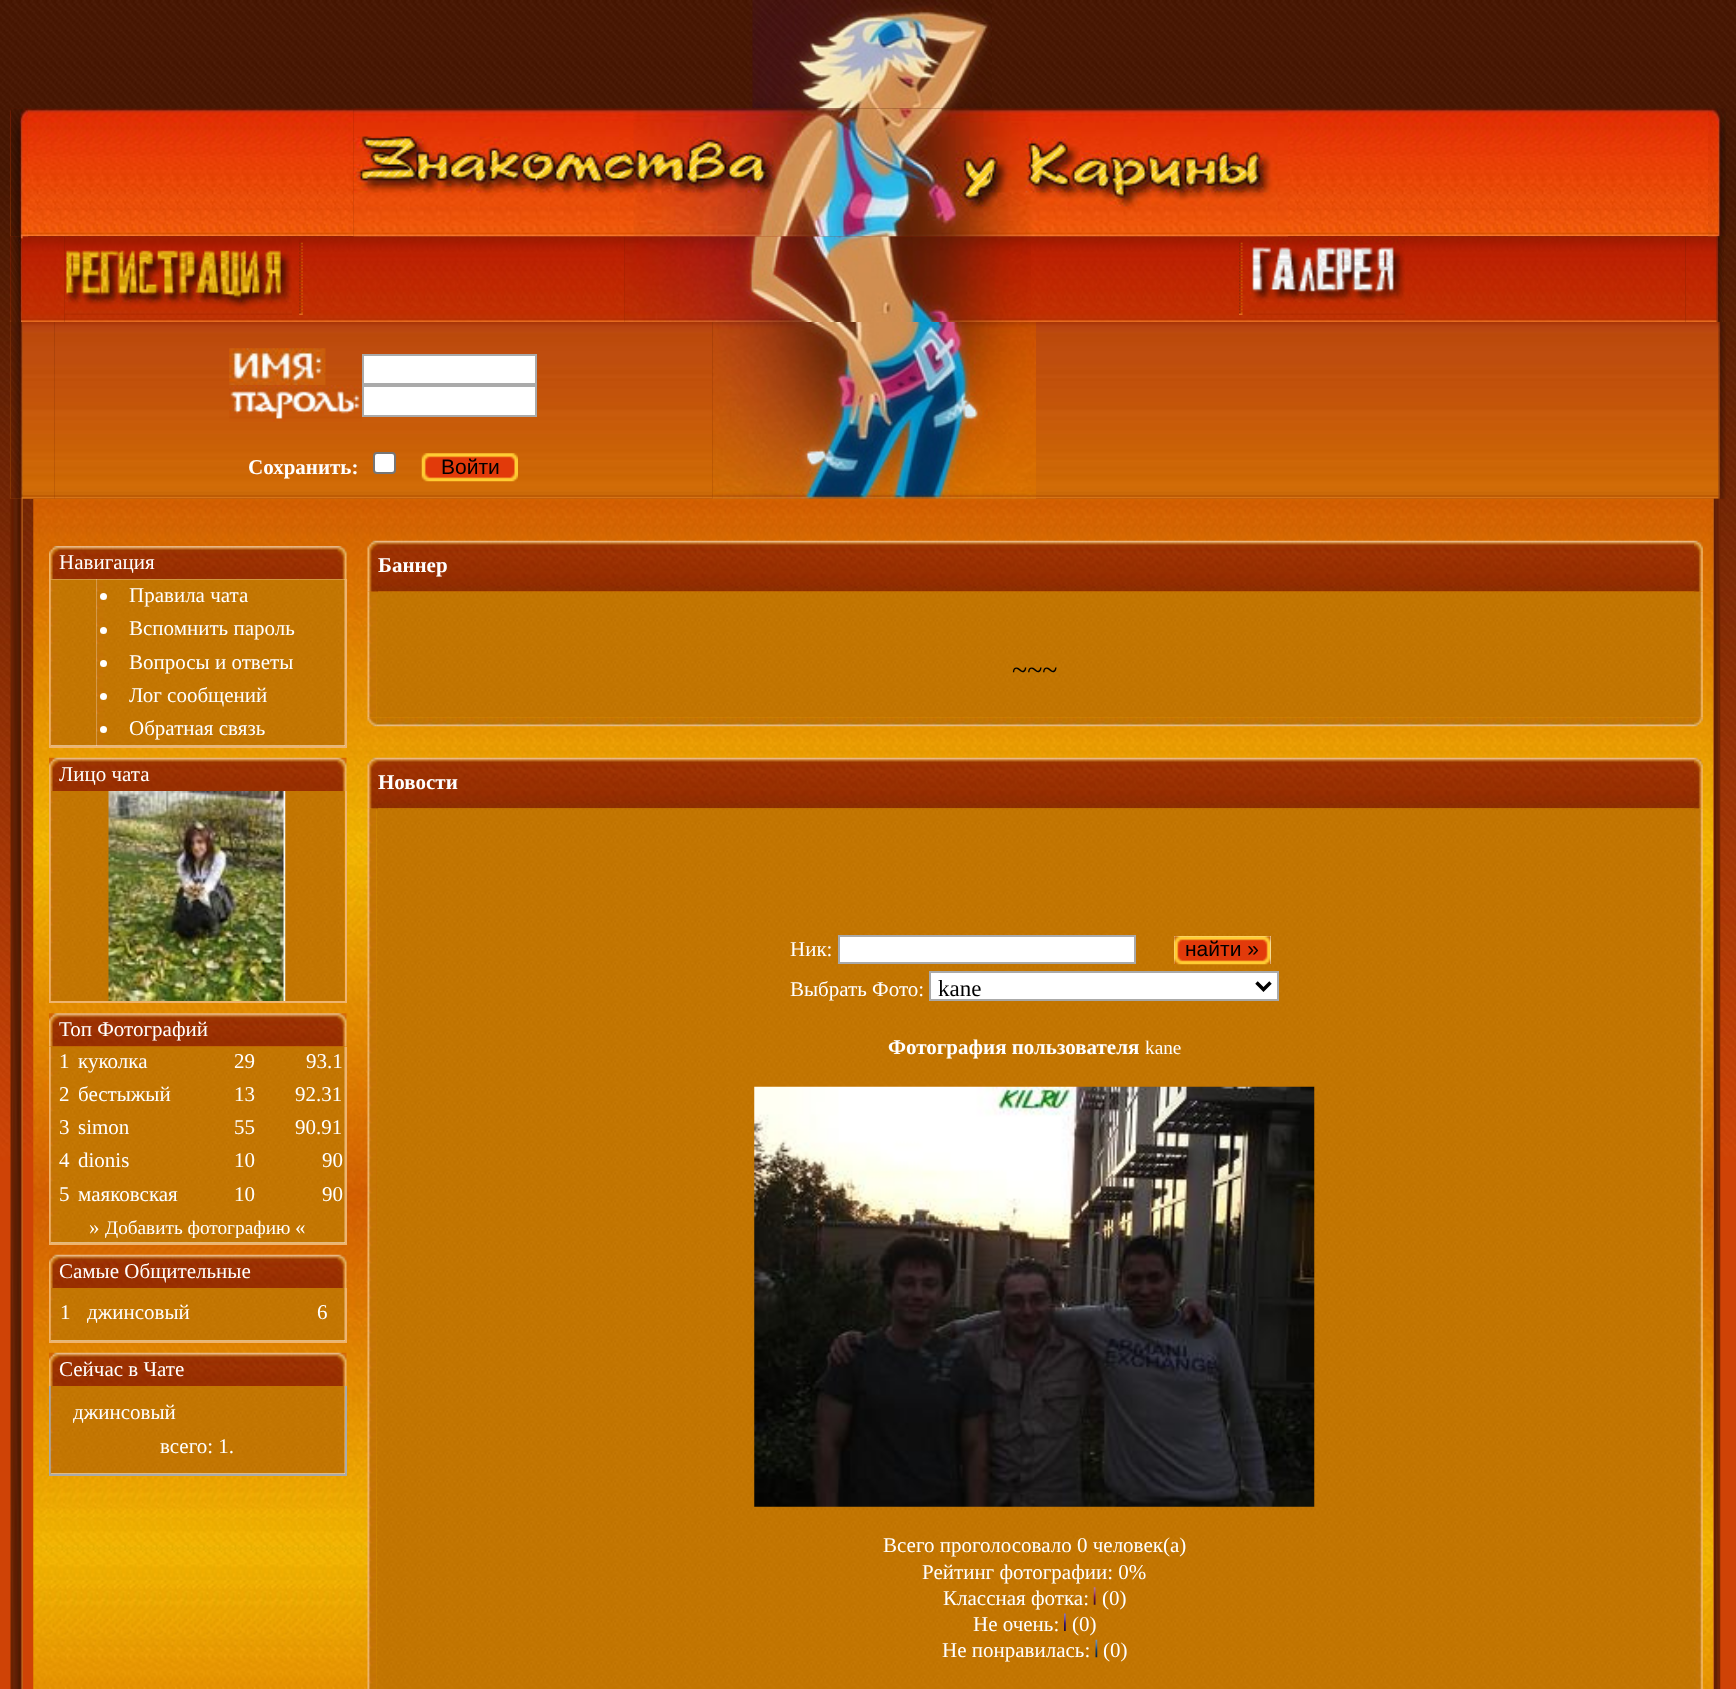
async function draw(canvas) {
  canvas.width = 1736
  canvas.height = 1689
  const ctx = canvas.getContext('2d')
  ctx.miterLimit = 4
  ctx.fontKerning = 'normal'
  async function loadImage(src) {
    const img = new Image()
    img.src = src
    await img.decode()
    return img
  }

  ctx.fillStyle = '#fff'
  ctx.fillRect(0, 0, 1736, 1689)
  ctx.drawImage(await loadImage('image0.png'), 0, 0, 1736, 1689)
  ctx.drawImage(await loadImage('image2.png'), 10, 108, 344, 129)
  ctx.drawImage(await loadImage('image4.png'), 353, 108, 935, 129)
  ctx.drawImage(await loadImage('image1.png'), 752, 0, 240, 109)
  ctx.drawImage(await loadImage('image8.png'), 10, 236, 55, 86)
  ctx.drawImage(await loadImage('image3.png'), 10, 108, 18, 129)
  ctx.drawImage(await loadImage('image10.png'), 64, 236, 561, 86)
  ctx.drawImage(await loadImage('image13.png'), 624, 236, 615, 86)
  ctx.drawImage(await loadImage('image14.png'), 624, 236, 407, 86)
  ctx.drawImage(await loadImage('image6.png'), 1288, 108, 420, 129)
  ctx.drawImage(await loadImage('image15.png'), 1239, 236, 447, 86)
  ctx.drawImage(await loadImage('image5.png'), 353, 108, 935, 129)
  ctx.drawImage(await loadImage('image18.png'), 1685, 236, 32, 86)
  ctx.drawImage(await loadImage('image7.png'), 1708, 108, 18, 129)
  ctx.drawImage(await loadImage('image9.png'), 10, 236, 13, 86)
  ctx.drawImage(await loadImage('image11.png'), 64, 238, 228, 77)
  ctx.drawImage(await loadImage('image12.png'), 299, 239, 4, 76)
  ctx.drawImage(await loadImage('image16.png'), 1239, 240, 4, 75)
  ctx.drawImage(await loadImage('image17.png'), 1249, 238, 156, 77)
  ctx.drawImage(await loadImage('image19.png'), 1716, 236, 8, 86)
  ctx.drawImage(await loadImage('image20.png'), 10, 322, 45, 177)
  ctx.drawImage(await loadImage('image21.png'), 10, 322, 13, 177)
  ctx.drawImage(await loadImage('image22.png'), 54, 322, 659, 177)
  ctx.drawImage(await loadImage('image23.png'), 229, 348, 97, 37)
  ctx.drawImage(await loadImage('image24.png'), 229, 385, 133, 37)
  ctx.beginPath()
  ctx.rect(363, 355, 173, 29)
  ctx.fill()
  ctx.strokeStyle = '#aaa'
  ctx.lineWidth = 2
  ctx.stroke()
  ctx.beginPath()
  ctx.rect(363, 386, 173, 30)
  ctx.fill()
  ctx.stroke()
  ctx.font = 'bold 21px Liberation Serif'
  ctx.fillText('Сохранить:', 248, 474)
  ctx.beginPath()
  ctx.roundRect(374, 453, 21, 20, 3)
  ctx.fill()
  ctx.strokeStyle = '#767676'
  ctx.stroke()
  ctx.drawImage(await loadImage('image25.png'), 421, 453, 97, 29)
  ctx.font = '21px Liberation Sans'
  ctx.fillStyle = '#000'
  ctx.fillText('Войти', 441, 474)
  ctx.drawImage(await loadImage('image27.png'), 1036, 322, 683, 177)
  ctx.drawImage(await loadImage('image30.png'), 33, 498, 1681, 1191)
  ctx.drawImage(await loadImage('image26.png'), 712, 322, 324, 177)
  ctx.drawImage(await loadImage('image28.png'), 1718, 322, 8, 177)
  ctx.drawImage(await loadImage('image29.png'), 10, 498, 13, 1191)
  ctx.drawImage(await loadImage('image31.png'), 49, 546, 298, 33)
  ctx.font = '21px Liberation Serif'
  ctx.fillStyle = '#fff'
  ctx.fillText('Навигация', 59, 569)
  ctx.fillStyle = '#efb46e'
  ctx.fillRect(49, 579, 2, 167)
  ctx.fillStyle = '#fff'
  ctx.fillRect(51, 579, 294, 167)
  ctx.drawImage(await loadImage('image32.png'), 50, 579, 295, 167)
  ctx.fillRect(96, 579, 203, 167)
  ctx.drawImage(await loadImage('image33.png'), 96, 579, 204, 167)
  ctx.beginPath()
  ctx.arc(103.5, 596.5, 3.5, 0, 2 * Math.PI)
  ctx.fill()
  ctx.fillText('Правила чата', 129, 602)
  ctx.beginPath()
  ctx.arc(103.5, 630.5, 3.5, 0, 2 * Math.PI)
  ctx.fill()
  ctx.fillText('Вспомнить пароль', 129, 635)
  ctx.beginPath()
  ctx.arc(103.5, 663.5, 3.5, 0, 2 * Math.PI)
  ctx.fill()
  ctx.fillText('Вопросы и ответы', 129, 669)
  ctx.beginPath()
  ctx.arc(103.5, 696.5, 3.5, 0, 2 * Math.PI)
  ctx.fill()
  ctx.fillText('Лог сообщений', 129, 702)
  ctx.beginPath()
  ctx.arc(103.5, 729.5, 3.5, 0, 2 * Math.PI)
  ctx.fill()
  ctx.fillText('Обратная связь', 129, 735)
  ctx.fillStyle = '#efb46e'
  ctx.fillRect(345, 579, 2, 167)
  ctx.fillRect(49, 746, 298, 2)
  ctx.drawImage(await loadImage('image34.png'), 49, 757, 298, 34)
  ctx.fillStyle = '#fff'
  ctx.fillText('Лицо чата', 59, 781)
  ctx.fillStyle = '#efb46e'
  ctx.fillRect(49, 791, 2, 210)
  ctx.drawImage(await loadImage('image35.png'), 50, 791, 295, 210)
  ctx.drawImage(await loadImage('image36.png'), 108, 791, 178, 210)
  ctx.fillRect(345, 791, 2, 210)
  ctx.fillRect(49, 1001, 298, 2)
  ctx.drawImage(await loadImage('image37.png'), 49, 1013, 298, 34)
  ctx.fillStyle = '#fff'
  ctx.fillText('Топ Фотографий', 59, 1036)
  ctx.fillStyle = '#efb46e'
  ctx.fillRect(49, 1047, 2, 196)
  ctx.fillStyle = '#fff'
  ctx.fillRect(51, 1047, 294, 196)
  ctx.drawImage(await loadImage('image38.png'), 50, 1046, 295, 197)
  ctx.fillText('1', 59, 1068)
  ctx.fillText('куколка', 78, 1068)
  ctx.fillText('29', 234, 1068)
  ctx.fillText('93.1', 306, 1068)
  ctx.fillText('2', 59, 1101)
  ctx.fillText('бестыжый', 78, 1101)
  ctx.fillText('13', 234, 1101)
  ctx.fillText('92.31', 295, 1101)
  ctx.fillText('3', 59, 1134)
  ctx.fillText('simon', 78, 1134)
  ctx.fillText('55', 234, 1134)
  ctx.fillText('90.91', 295, 1134)
  ctx.fillText('4', 59, 1167)
  ctx.fillText('dionis', 78, 1167)
  ctx.fillText('10', 234, 1167)
  ctx.fillText('90', 322, 1167)
  ctx.fillText('5', 59, 1201)
  ctx.fillText('маяковская', 78, 1201)
  ctx.fillText('10', 234, 1201)
  ctx.fillText('90', 322, 1201)
  ctx.fillText('»', 89, 1234)
  ctx.font = '19.25px Liberation Serif'
  ctx.fillText('Добавить фотографию', 105, 1234)
  ctx.font = '21px Liberation Serif'
  ctx.fillText('«', 295, 1234)
  ctx.fillStyle = '#efb46e'
  ctx.fillRect(345, 1047, 2, 196)
  ctx.fillRect(49, 1243, 298, 2)
  ctx.drawImage(await loadImage('image39.png'), 49, 1254, 298, 34)
  ctx.fillStyle = '#fff'
  ctx.fillText('Самые Общительные', 59, 1278)
  ctx.fillStyle = '#efb46e'
  ctx.fillRect(49, 1288, 2, 53)
  ctx.fillStyle = '#fff'
  ctx.fillRect(51, 1288, 294, 53)
  ctx.drawImage(await loadImage('image40.png'), 50, 1288, 295, 53)
  ctx.fillText('1', 60, 1319)
  ctx.fillText('джинсовый', 87, 1319)
  ctx.fillText('6', 317, 1319)
  ctx.fillStyle = '#efb46e'
  ctx.fillRect(345, 1288, 2, 53)
  ctx.fillRect(49, 1341, 298, 2)
  ctx.drawImage(await loadImage('image41.png'), 49, 1352, 298, 34)
  ctx.fillStyle = '#fff'
  ctx.fillText('Сейчас в Чате', 59, 1376)
  ctx.fillStyle = '#aaa'
  ctx.fillRect(49, 1386, 2, 88)
  ctx.fillStyle = '#fff'
  ctx.fillRect(51, 1386, 294, 88)
  ctx.drawImage(await loadImage('image42.png'), 50, 1386, 295, 88)
  ctx.fillText('джинсовый', 73, 1419)
  ctx.fillText('всего: 1.', 160, 1453)
  ctx.fillStyle = '#aaa'
  ctx.fillRect(345, 1386, 2, 88)
  ctx.fillRect(49, 1474, 298, 2)
  ctx.drawImage(await loadImage('image46.png'), 367, 591, 10, 127)
  ctx.drawImage(await loadImage('image44.png'), 378, 540, 1316, 52)
  ctx.drawImage(await loadImage('image47.png'), 376, 591, 1318, 127)
  ctx.drawImage(await loadImage('image43.png'), 367, 540, 11, 52)
  ctx.font = 'bold 21px Liberation Serif'
  ctx.fillStyle = '#fff'
  ctx.fillText('Баннер', 378, 572)
  ctx.drawImage(await loadImage('image48.png'), 1694, 591, 9, 127)
  ctx.drawImage(await loadImage('image45.png'), 1694, 540, 9, 52)
  ctx.font = '28px Liberation Serif'
  ctx.fillStyle = '#000'
  ctx.fillText('~~~', 1012, 679)
  ctx.drawImage(await loadImage('image50.png'), 376, 717, 1318, 10)
  ctx.drawImage(await loadImage('image49.png'), 367, 717, 10, 10)
  ctx.drawImage(await loadImage('image51.png'), 1694, 717, 9, 10)
  ctx.drawImage(await loadImage('image55.png'), 367, 808, 10, 881)
  ctx.drawImage(await loadImage('image53.png'), 378, 757, 1316, 52)
  ctx.drawImage(await loadImage('image56.png'), 376, 808, 1318, 881)
  ctx.drawImage(await loadImage('image52.png'), 367, 757, 11, 52)
  ctx.font = 'bold 21px Liberation Serif'
  ctx.fillStyle = '#fff'
  ctx.fillText('Новости', 378, 789)
  ctx.drawImage(await loadImage('image62.png'), 1694, 808, 9, 881)
  ctx.drawImage(await loadImage('image54.png'), 1694, 757, 9, 52)
  ctx.font = '21px Liberation Serif'
  ctx.fillText('Ник:', 790, 956)
  ctx.beginPath()
  ctx.rect(839, 936, 296, 27)
  ctx.fill()
  ctx.strokeStyle = '#aaa'
  ctx.stroke()
  ctx.fillStyle = '#efefef'
  ctx.fillRect(1174, 936, 97, 28)
  ctx.drawImage(await loadImage('image57.png'), 1174, 936, 97, 29)
  ctx.font = '21px Liberation Sans'
  ctx.fillStyle = '#000'
  ctx.fillText('найти »', 1185, 956)
  ctx.font = '21px Liberation Serif'
  ctx.fillStyle = '#fff'
  ctx.fillText('Выбрать Фото:', 790, 996)
  ctx.beginPath()
  ctx.rect(930, 972, 348, 28)
  ctx.fill()
  ctx.stroke()
  ctx.beginPath()
  ctx.moveTo(1256.5, 982.5)
  ctx.lineTo(1263.5, 989.5)
  ctx.lineTo(1270.5, 982.5)
  ctx.strokeStyle = '#000'
  ctx.lineWidth = 3.5
  ctx.stroke()
  ctx.font = '23px Liberation Serif'
  ctx.fillStyle = '#000'
  ctx.fillText('kane', 938, 996)
  ctx.font = 'bold 21px Liberation Serif'
  ctx.fillStyle = '#fff'
  ctx.fillText('Фотография пользователя', 888, 1054)
  ctx.font = '19.25px Liberation Serif'
  ctx.fillText('kane', 1145, 1054)
  ctx.drawImage(await loadImage('image58.png'), 754, 1086, 561, 421)
  ctx.font = '21px Liberation Serif'
  ctx.fillText('Всего проголосовало 0 человек(a)', 883, 1552)
  ctx.fillText('Рейтинг фотографии: 0%', 922, 1579)
  ctx.fillText('Классная фотка:', 943, 1605)
  ctx.drawImage(await loadImage('image59.png'), 1093, 1587, 3, 18)
  ctx.fillText('(0)', 1102, 1605)
  ctx.fillText('Не очень:', 973, 1631)
  ctx.drawImage(await loadImage('image60.png'), 1064, 1613, 2, 18)
  ctx.fillText('(0)', 1072, 1631)
  ctx.fillText('Не понравилась:', 942, 1657)
  ctx.drawImage(await loadImage('image61.png'), 1095, 1639, 3, 19)
  ctx.fillText('(0)', 1103, 1657)
  ctx.drawImage(await loadImage('image63.png'), 1713, 498, 8, 1191)
}

draw(document.querySelector('canvas'))
